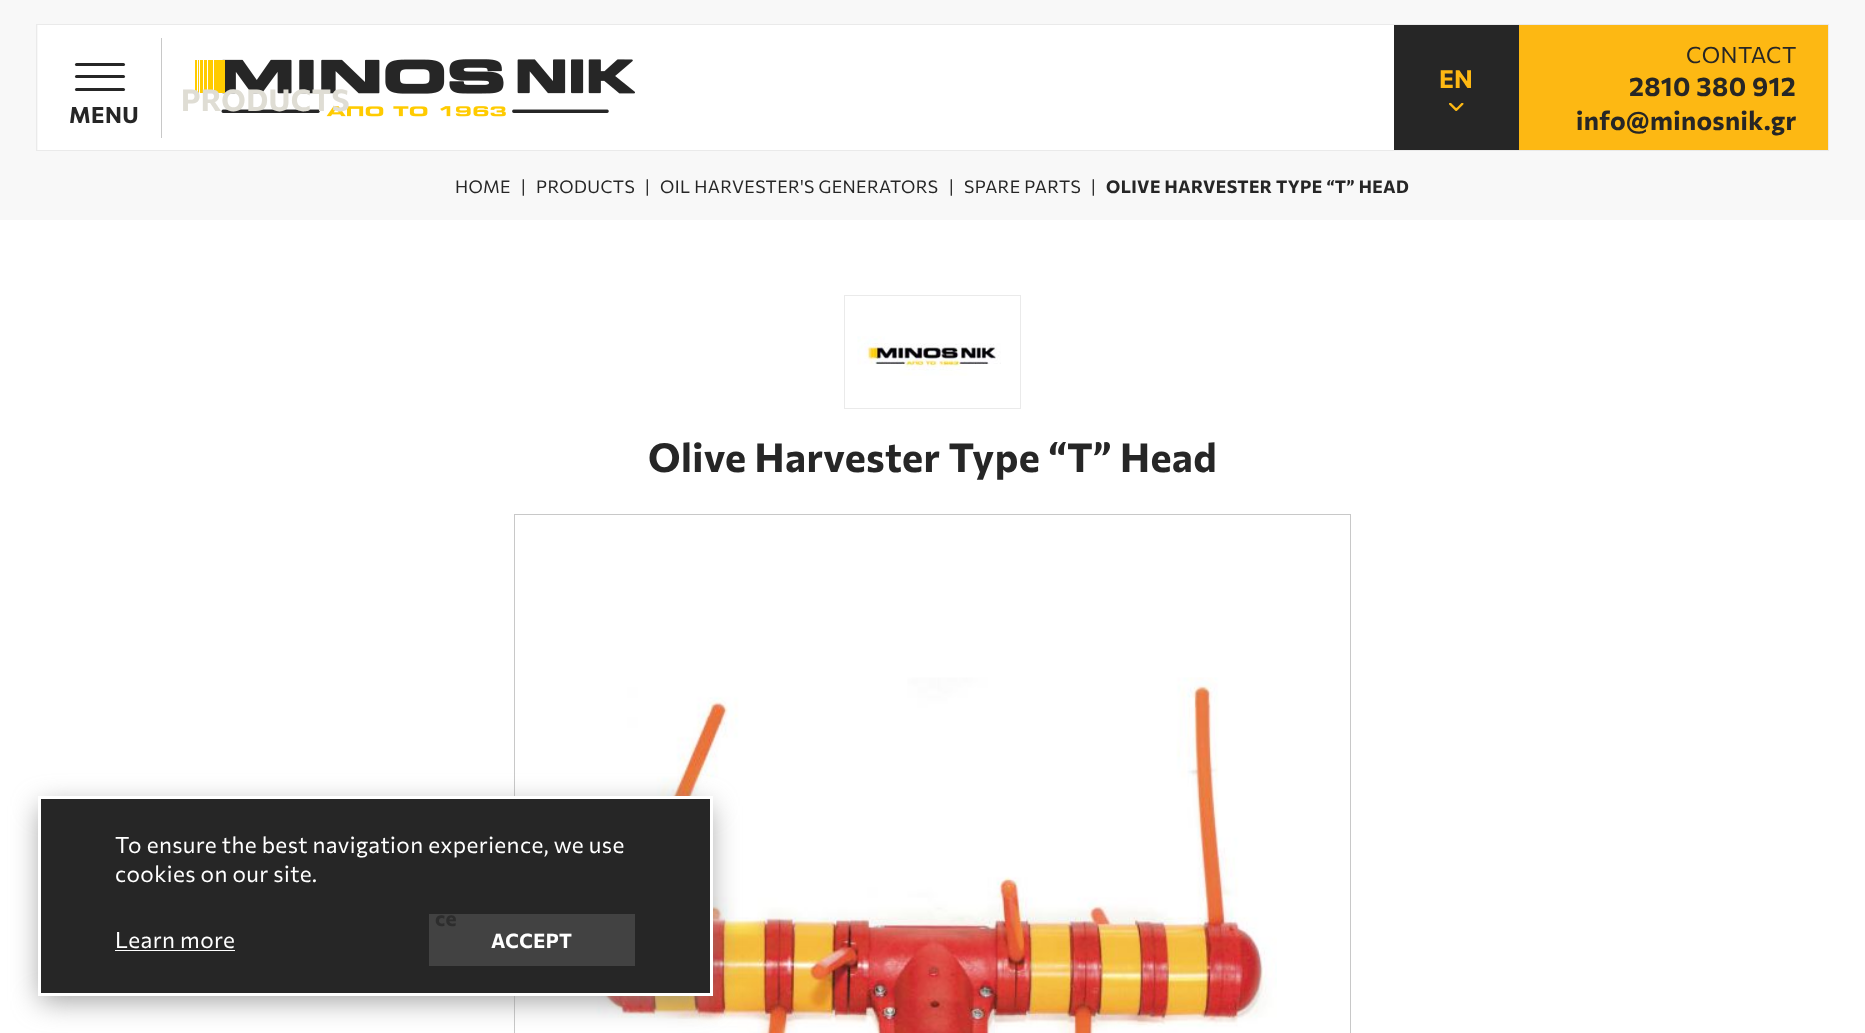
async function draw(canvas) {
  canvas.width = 1865
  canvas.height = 1033
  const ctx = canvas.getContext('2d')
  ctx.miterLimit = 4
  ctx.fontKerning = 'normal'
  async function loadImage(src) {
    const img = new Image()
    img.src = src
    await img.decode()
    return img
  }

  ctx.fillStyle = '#fff'
  ctx.fillRect(0, 0, 1865, 1033)
  ctx.fillStyle = '#f8f8f8'
  ctx.fillRect(0, 0, 1865, 220)
  ctx.strokeStyle = '#eaeaea'
  ctx.strokeRect(36.5, 24.5, 1792, 126)
  ctx.fillStyle = '#fff'
  ctx.fillRect(38, 25, 1356, 125)
  ctx.fillStyle = '#262626'
  ctx.beginPath()
  ctx.roundRect(75, 63, 50, 3, 1.5)
  ctx.fill()
  ctx.beginPath()
  ctx.roundRect(75, 75, 50, 3, 1.5)
  ctx.fill()
  ctx.beginPath()
  ctx.roundRect(75, 88, 50, 3, 1.5)
  ctx.fill()
  ctx.letterSpacing = '0.4px'
  ctx.font = 'bold 22.5px Commissioner'
  ctx.fillText('MENU', 69, 123)
  ctx.fillStyle = '#c8c8c8'
  ctx.fillRect(161, 38, 1, 100)
  ctx.drawImage(await loadImage('image0.png'), 195, 59, 440, 58)
  ctx.font = 'bold 30px Commissioner'
  ctx.fillStyle = '#dfddd4'
  ctx.fillText('PRODUCTS', 181, 111)
  ctx.strokeStyle = '#c8c8c8'
  ctx.strokeRect(514.5, 514.5, 836, 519)
  ctx.drawImage(await loadImage('image3.png'), 596, 677, 681, 356)
  ctx.fillStyle = '#8a8a8acc'
  ctx.filter = 'blur(14px)'
  ctx.beginPath()
  ctx.rect(40, 806, 670, 195)
  ctx.fill()
  ctx.filter = 'none'
  ctx.fillStyle = '#262626'
  ctx.beginPath()
  ctx.rect(39.5, 797.5, 672, 197)
  ctx.fill()
  ctx.strokeStyle = '#fff'
  ctx.lineWidth = 3
  ctx.stroke()
  ctx.fillStyle = '#424242'
  ctx.fillRect(429, 914, 206, 52)
  ctx.font = 'bold 21px Commissioner'
  ctx.fillStyle = '#2d2d2d'
  ctx.fillText('ce', 435, 926)
  ctx.fillStyle = '#262626'
  ctx.fillRect(1394, 25, 125, 125)
  ctx.drawImage(await loadImage('image1.png'), 1449, 103, 15, 8)
  ctx.letterSpacing = '0px'
  ctx.font = 'bold 25px Commissioner'
  ctx.fillStyle = '#fdb813'
  ctx.fillText('EN', 1439, 88)
  ctx.fillRect(1519, 25, 309, 125)
  ctx.letterSpacing = '0.4px'
  ctx.font = '22.5px Commissioner'
  ctx.fillStyle = '#262626'
  ctx.fillText('CONTACT', 1686, 63)
  ctx.font = 'bold 26.25px Commissioner'
  ctx.fillText('2810 380 912', 1629, 96)
  ctx.fillText('info@minosnik.gr', 1576, 130)
  ctx.font = '17.5px Commissioner'
  ctx.fillText('HOME', 455, 193)
  ctx.fillText('|', 521, 193)
  ctx.fillText('PRODUCTS', 536, 193)
  ctx.fillText('|', 645, 193)
  ctx.fillText('OIL HARVESTER\'S GENERATORS', 660, 193)
  ctx.fillText('|', 949, 193)
  ctx.fillText('SPARE PARTS', 964, 193)
  ctx.fillText('|', 1091, 193)
  ctx.font = 'bold 17.5px Commissioner'
  ctx.fillText('OLIVE HARVESTER TYPE “T” HEAD', 1106, 193)
  ctx.strokeStyle = '#eaeaea'
  ctx.lineWidth = 1
  ctx.strokeRect(844.5, 295.5, 176, 113)
  ctx.drawImage(await loadImage('image2.png'), 857, 336, 144, 40)
  ctx.font = 'bold 40px Commissioner'
  ctx.fillText('Olive Harvester Type “T” Head', 648, 472)
  ctx.font = '22.5px Commissioner'
  ctx.fillStyle = '#fff'
  ctx.fillText('To ensure the best navigation experience, we use', 115, 853)
  ctx.fillText('cookies on our site.', 115, 882)
  ctx.fillText('Learn more', 115, 948)
  ctx.fillRect(115, 950, 120, 1)
  ctx.font = 'bold 20px Commissioner'
  ctx.fillText('ACCEPT', 491, 948)
}

draw(document.querySelector('canvas'))
